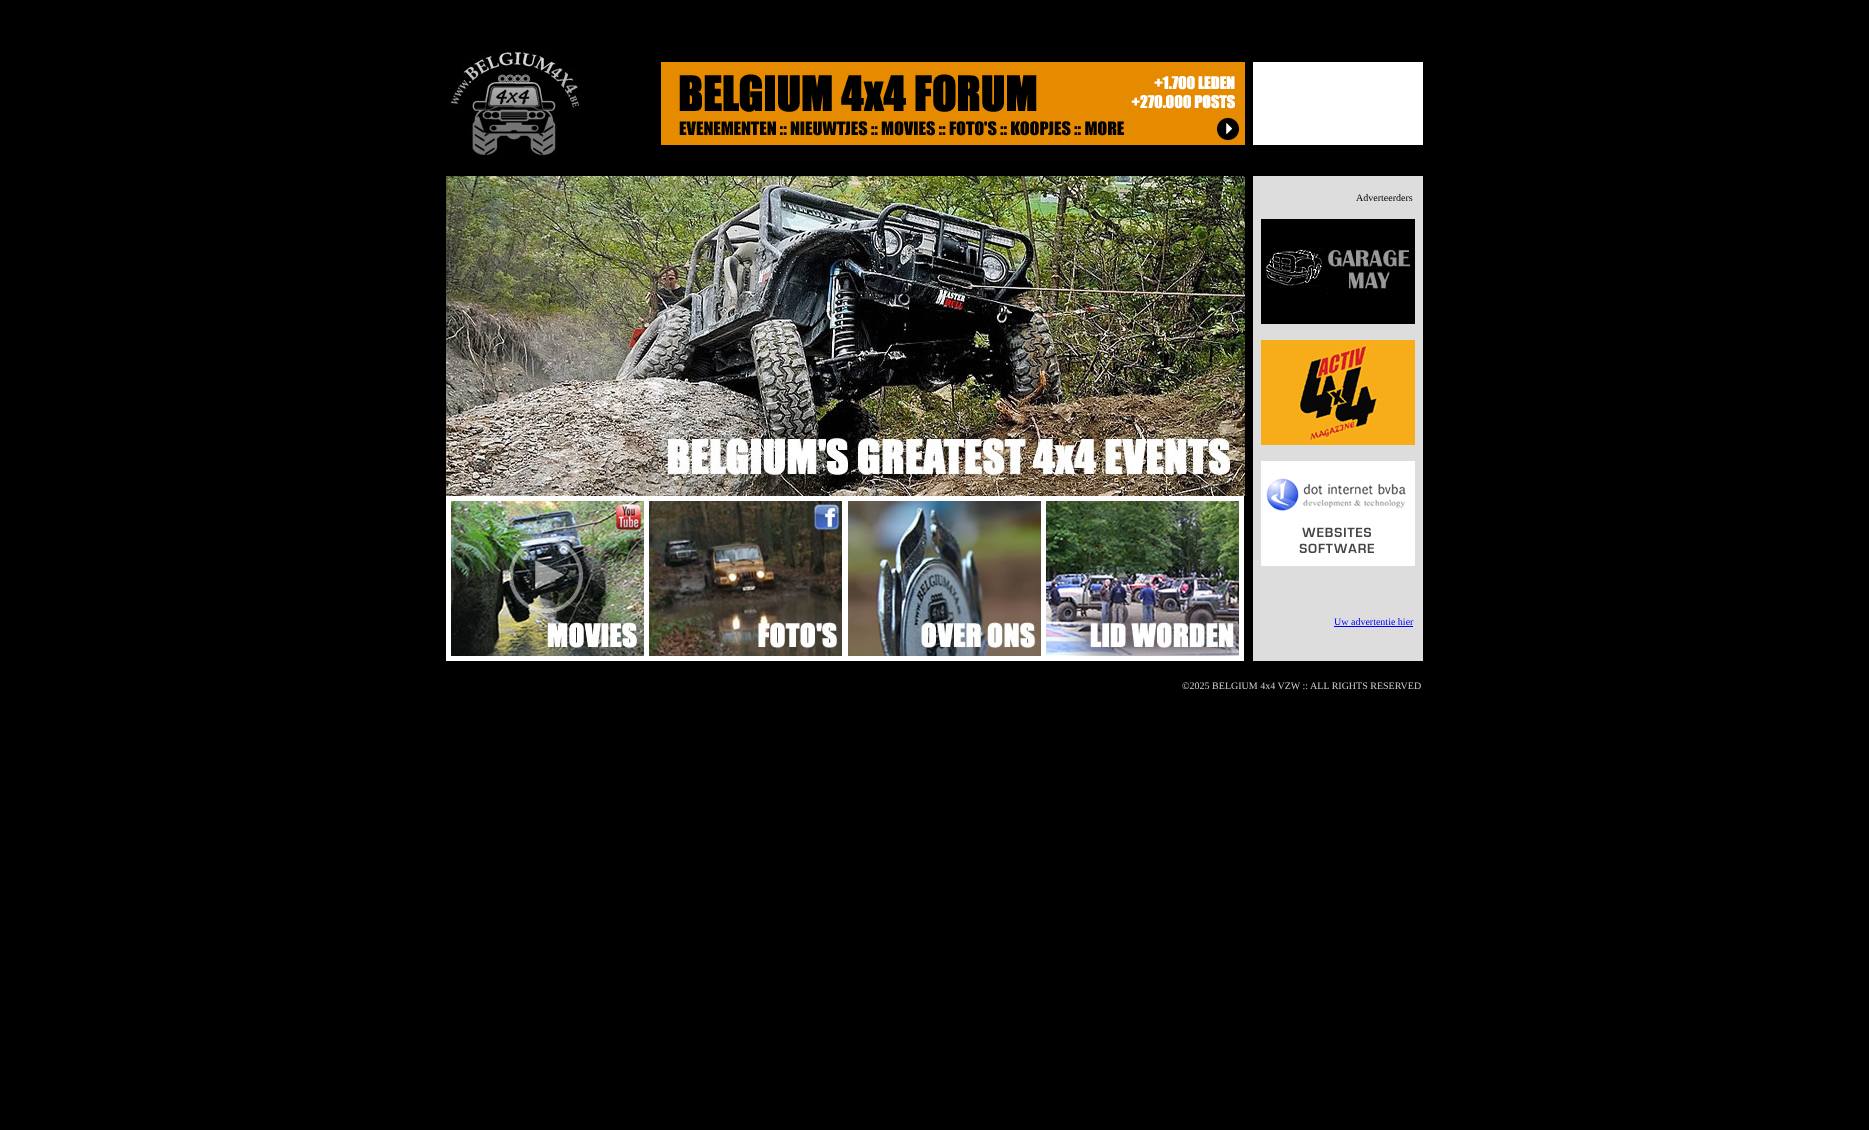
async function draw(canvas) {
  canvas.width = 1869
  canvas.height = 1130
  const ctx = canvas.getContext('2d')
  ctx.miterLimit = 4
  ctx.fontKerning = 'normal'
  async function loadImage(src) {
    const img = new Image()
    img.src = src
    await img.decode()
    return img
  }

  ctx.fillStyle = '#000'
  ctx.fillRect(0, 0, 1869, 1130)
  ctx.drawImage(await loadImage('image0.png'), 449, 51, 132, 105)
  ctx.drawImage(await loadImage('image1.png'), 661, 62, 584, 83)
  ctx.fillStyle = '#fff'
  ctx.fillRect(1253, 62, 170, 83)
  ctx.drawImage(await loadImage('image2.png'), 446, 176, 799, 320)
  ctx.strokeStyle = '#fff'
  ctx.lineWidth = 5
  ctx.strokeRect(448.5, 498.5, 198, 160)
  ctx.fillRect(649, 496, 392, 5)
  ctx.drawImage(await loadImage('image3.png'), 451, 501, 193, 155)
  ctx.drawImage(await loadImage('image4.png'), 649, 501, 193, 155)
  ctx.fillRect(649, 656, 392, 5)
  ctx.fillRect(842, 496, 6, 165)
  ctx.drawImage(await loadImage('image5.png'), 848, 501, 193, 155)
  ctx.strokeRect(1043.5, 498.5, 198, 160)
  ctx.drawImage(await loadImage('image6.png'), 1046, 501, 193, 155)
  ctx.fillStyle = '#ddd'
  ctx.fillRect(1253, 176, 170, 485)
  ctx.font = '10px Liberation Serif'
  ctx.fillStyle = '#000'
  ctx.fillText('Adverteerders', 1356, 201)
  ctx.drawImage(await loadImage('image7.png'), 1261, 219, 154, 105)
  ctx.drawImage(await loadImage('image8.png'), 1261, 340, 154, 105)
  ctx.drawImage(await loadImage('image9.png'), 1261, 461, 154, 105)
  ctx.fillStyle = '#00f'
  ctx.fillText('Uw advertentie hier', 1334, 625)
  ctx.fillStyle = '#00e'
  ctx.fillRect(1334, 626, 79, 1)
  ctx.fillStyle = '#ccc'
  ctx.fillText('©2025 BELGIUM 4x4 VZW :: ALL RIGHTS RESERVED', 1182, 689)
}

draw(document.querySelector('canvas'))
